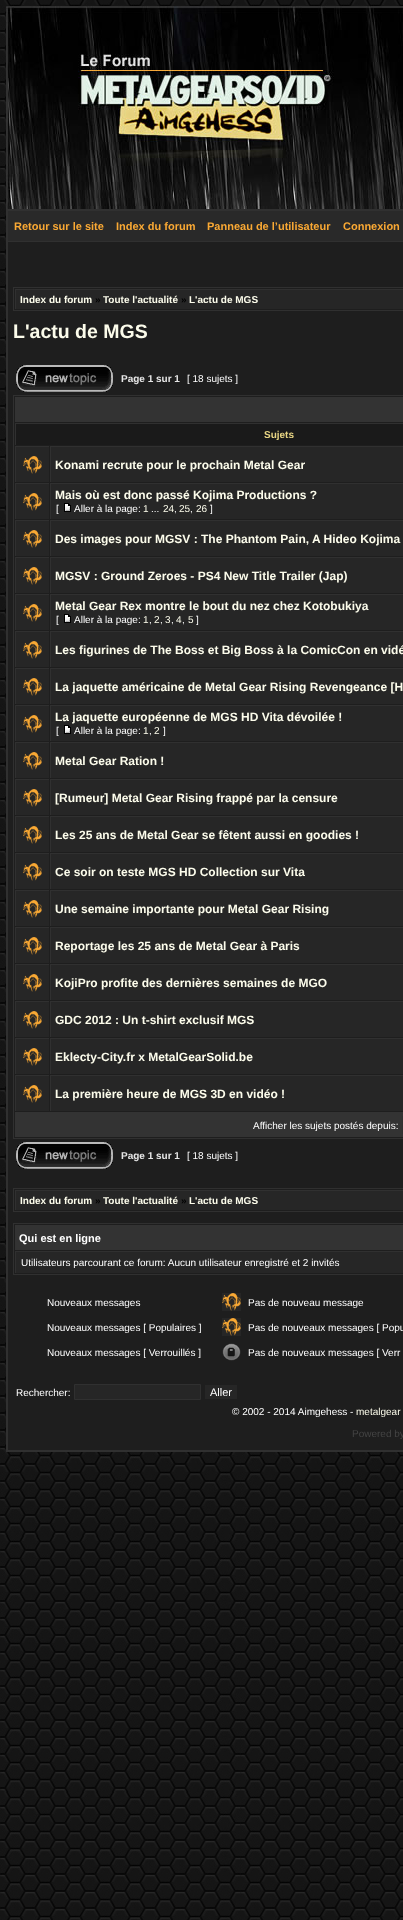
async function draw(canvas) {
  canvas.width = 403
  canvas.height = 1920
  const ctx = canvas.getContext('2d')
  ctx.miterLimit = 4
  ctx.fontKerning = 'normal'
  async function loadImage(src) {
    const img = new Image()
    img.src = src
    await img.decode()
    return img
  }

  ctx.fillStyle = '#fff'
  ctx.fillRect(0, 0, 403, 1920)
  ctx.drawImage(await loadImage('image0.png'), 0, 0, 403, 1920)
  ctx.drawImage(await loadImage('image1.png'), 6, 6, 397, 203)
  ctx.fillStyle = '#303030'
  ctx.fillRect(6, 209, 397, 1)
  ctx.fillRect(6, 1450, 397, 2)
  ctx.fillRect(6, 209, 2, 1243)
  ctx.fillStyle = '#1e1e1e'
  ctx.fillRect(8, 242, 395, 1208)
  ctx.fillStyle = '#292929'
  ctx.fillRect(8, 211, 395, 30)
  ctx.fillStyle = '#303030'
  ctx.fillRect(8, 210, 395, 1)
  ctx.fillRect(8, 241, 395, 1)
  ctx.font = 'bold 11px Liberation Sans'
  ctx.fillStyle = '#faa934'
  ctx.fillText('Retour sur le site', 14, 230)
  ctx.fillText('Index du forum', 116, 230)
  ctx.fillText('Panneau de l’utilisateur', 207, 230)
  ctx.fillText('Connexion', 343, 230)
  ctx.strokeStyle = '#303030'
  ctx.strokeRect(13.5, 287.5, 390, 23)
  ctx.fillStyle = '#262626'
  ctx.fillRect(16, 290, 387, 19)
  ctx.fillStyle = '#303030'
  ctx.fillRect(15, 289, 388, 1)
  ctx.fillRect(15, 289, 1, 20)
  ctx.font = 'bold 10px Liberation Sans'
  ctx.fillStyle = '#fcfceb'
  ctx.fillText('Index du forum', 20, 303)
  ctx.fillStyle = '#000'
  ctx.fillText('»', 95, 303)
  ctx.fillStyle = '#fcfceb'
  ctx.fillText('Toute l\'actualité', 103, 303)
  ctx.fillStyle = '#000'
  ctx.fillText('»', 181, 303)
  ctx.fillStyle = '#fcfceb'
  ctx.fillText('L\'actu de MGS', 189, 303)
  ctx.font = 'bold 19.5px Liberation Sans'
  ctx.fillText('L\'actu de MGS', 13, 338)
  ctx.drawImage(await loadImage('image2.png'), 16, 365, 97, 27)
  ctx.font = 'bold 10px Liberation Sans'
  ctx.fillStyle = '#e7e7e7'
  ctx.fillText('Page 1 sur 1', 121, 382)
  ctx.font = '10px Liberation Sans'
  ctx.fillStyle = '#fff'
  ctx.fillText('[ 18 sujets ]', 187, 382)
  ctx.strokeRect(13.5, 395.5, 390, 743)
  ctx.fillStyle = '#333'
  ctx.fillRect(15, 397, 388, 25)
  ctx.fillStyle = '#1a1a1a'
  ctx.fillRect(16, 424, 387, 21)
  ctx.fillStyle = '#303030'
  ctx.fillRect(15, 423, 388, 1)
  ctx.fillRect(15, 423, 1, 22)
  ctx.font = 'bold 10px Liberation Sans'
  ctx.fillStyle = '#e8d584'
  ctx.fillText('Sujets', 264, 438)
  ctx.fillStyle = '#262626'
  ctx.fillRect(16, 447, 33, 35)
  ctx.fillStyle = '#303030'
  ctx.fillRect(15, 446, 34, 1)
  ctx.fillRect(15, 446, 1, 36)
  ctx.drawImage(await loadImage('image3.png'), 23, 456, 19, 18)
  ctx.fillStyle = '#262626'
  ctx.fillRect(51, 447, 352, 35)
  ctx.fillStyle = '#303030'
  ctx.fillRect(50, 446, 353, 1)
  ctx.fillRect(50, 446, 1, 36)
  ctx.font = 'bold 12px Liberation Sans'
  ctx.fillStyle = '#fcfceb'
  ctx.fillText('Konami recrute pour le prochain Metal Gear', 55, 469)
  ctx.fillStyle = '#262626'
  ctx.fillRect(16, 484, 33, 35)
  ctx.fillStyle = '#303030'
  ctx.fillRect(15, 483, 34, 1)
  ctx.fillRect(15, 483, 1, 36)
  ctx.drawImage(await loadImage('image3.png'), 23, 493, 19, 18)
  ctx.fillStyle = '#262626'
  ctx.fillRect(51, 484, 352, 35)
  ctx.fillStyle = '#303030'
  ctx.fillRect(50, 483, 353, 1)
  ctx.fillRect(50, 483, 1, 36)
  ctx.fillStyle = '#fcfceb'
  ctx.fillText('Mais où est donc passé Kojima Productions ?', 55, 499)
  ctx.font = '10px Liberation Sans'
  ctx.fillStyle = '#fff'
  ctx.fillText('[', 56, 512)
  ctx.drawImage(await loadImage('image4.png'), 64, 503, 7, 9)
  ctx.fillText('Aller à la page:', 74, 512)
  ctx.fillStyle = '#fcfceb'
  ctx.fillText('1', 143, 512)
  ctx.fillStyle = '#fff'
  ctx.fillText('...', 151, 512)
  ctx.fillStyle = '#fcfceb'
  ctx.fillText('24', 163, 512)
  ctx.fillStyle = '#fff'
  ctx.fillText(',', 174, 512)
  ctx.fillStyle = '#fcfceb'
  ctx.fillText('25', 179, 512)
  ctx.fillStyle = '#fff'
  ctx.fillText(',', 190, 512)
  ctx.fillStyle = '#fcfceb'
  ctx.fillText('26', 196, 512)
  ctx.fillStyle = '#fff'
  ctx.fillText(']', 210, 512)
  ctx.fillStyle = '#262626'
  ctx.fillRect(16, 521, 33, 35)
  ctx.fillStyle = '#303030'
  ctx.fillRect(15, 520, 34, 1)
  ctx.fillRect(15, 520, 1, 36)
  ctx.drawImage(await loadImage('image3.png'), 23, 530, 19, 18)
  ctx.fillStyle = '#262626'
  ctx.fillRect(51, 521, 352, 35)
  ctx.fillStyle = '#303030'
  ctx.fillRect(50, 520, 353, 1)
  ctx.fillRect(50, 520, 1, 36)
  ctx.font = 'bold 12px Liberation Sans'
  ctx.fillStyle = '#fcfceb'
  ctx.fillText('Des images pour MGSV : The Phantom Pain, A Hideo Kojima', 55, 543)
  ctx.fillStyle = '#262626'
  ctx.fillRect(16, 558, 33, 35)
  ctx.fillStyle = '#303030'
  ctx.fillRect(15, 557, 34, 1)
  ctx.fillRect(15, 557, 1, 36)
  ctx.drawImage(await loadImage('image3.png'), 23, 567, 19, 18)
  ctx.fillStyle = '#262626'
  ctx.fillRect(51, 558, 352, 35)
  ctx.fillStyle = '#303030'
  ctx.fillRect(50, 557, 353, 1)
  ctx.fillRect(50, 557, 1, 36)
  ctx.fillStyle = '#fcfceb'
  ctx.fillText('MGSV : Ground Zeroes - PS4 New Title Trailer (Jap)', 55, 580)
  ctx.fillStyle = '#262626'
  ctx.fillRect(16, 595, 33, 35)
  ctx.fillStyle = '#303030'
  ctx.fillRect(15, 594, 34, 1)
  ctx.fillRect(15, 594, 1, 36)
  ctx.drawImage(await loadImage('image3.png'), 23, 604, 19, 18)
  ctx.fillStyle = '#262626'
  ctx.fillRect(51, 595, 352, 35)
  ctx.fillStyle = '#303030'
  ctx.fillRect(50, 594, 353, 1)
  ctx.fillRect(50, 594, 1, 36)
  ctx.fillStyle = '#fcfceb'
  ctx.fillText('Metal Gear Rex montre le bout du nez chez Kotobukiya', 55, 610)
  ctx.font = '10px Liberation Sans'
  ctx.fillStyle = '#fff'
  ctx.fillText('[', 56, 623)
  ctx.drawImage(await loadImage('image4.png'), 64, 614, 7, 9)
  ctx.fillText('Aller à la page:', 74, 623)
  ctx.fillStyle = '#fcfceb'
  ctx.fillText('1', 143, 623)
  ctx.fillStyle = '#fff'
  ctx.fillText(',', 149, 623)
  ctx.fillStyle = '#fcfceb'
  ctx.fillText('2', 154, 623)
  ctx.fillStyle = '#fff'
  ctx.fillText(',', 160, 623)
  ctx.fillStyle = '#fcfceb'
  ctx.fillText('3', 165, 623)
  ctx.fillStyle = '#fff'
  ctx.fillText(',', 171, 623)
  ctx.fillStyle = '#fcfceb'
  ctx.fillText('4', 176, 623)
  ctx.fillStyle = '#fff'
  ctx.fillText(',', 182, 623)
  ctx.fillStyle = '#fcfceb'
  ctx.fillText('5', 188, 623)
  ctx.fillStyle = '#fff'
  ctx.fillText(']', 196, 623)
  ctx.fillStyle = '#262626'
  ctx.fillRect(16, 632, 33, 35)
  ctx.fillStyle = '#303030'
  ctx.fillRect(15, 631, 34, 1)
  ctx.fillRect(15, 631, 1, 36)
  ctx.drawImage(await loadImage('image3.png'), 23, 641, 19, 18)
  ctx.fillStyle = '#262626'
  ctx.fillRect(51, 632, 352, 35)
  ctx.fillStyle = '#303030'
  ctx.fillRect(50, 631, 353, 1)
  ctx.fillRect(50, 631, 1, 36)
  ctx.font = 'bold 12px Liberation Sans'
  ctx.fillStyle = '#fcfceb'
  ctx.fillText('Les figurines de The Boss et Big Boss à la ComicCon en vidé', 55, 654)
  ctx.fillStyle = '#262626'
  ctx.fillRect(16, 669, 33, 35)
  ctx.fillStyle = '#303030'
  ctx.fillRect(15, 668, 34, 1)
  ctx.fillRect(15, 668, 1, 36)
  ctx.drawImage(await loadImage('image3.png'), 23, 678, 19, 18)
  ctx.fillStyle = '#262626'
  ctx.fillRect(51, 669, 352, 35)
  ctx.fillStyle = '#303030'
  ctx.fillRect(50, 668, 353, 1)
  ctx.fillRect(50, 668, 1, 36)
  ctx.fillStyle = '#fcfceb'
  ctx.fillText('La jaquette américaine de Metal Gear Rising Revengeance [H', 55, 691)
  ctx.fillStyle = '#262626'
  ctx.fillRect(16, 706, 33, 35)
  ctx.fillStyle = '#303030'
  ctx.fillRect(15, 705, 34, 1)
  ctx.fillRect(15, 705, 1, 36)
  ctx.drawImage(await loadImage('image3.png'), 23, 715, 19, 18)
  ctx.fillStyle = '#262626'
  ctx.fillRect(51, 706, 352, 35)
  ctx.fillStyle = '#303030'
  ctx.fillRect(50, 705, 353, 1)
  ctx.fillRect(50, 705, 1, 36)
  ctx.fillStyle = '#fcfceb'
  ctx.fillText('La jaquette européenne de MGS HD Vita dévoilée !', 55, 721)
  ctx.font = '10px Liberation Sans'
  ctx.fillStyle = '#fff'
  ctx.fillText('[', 56, 734)
  ctx.drawImage(await loadImage('image4.png'), 64, 725, 7, 9)
  ctx.fillText('Aller à la page:', 74, 734)
  ctx.fillStyle = '#fcfceb'
  ctx.fillText('1', 143, 734)
  ctx.fillStyle = '#fff'
  ctx.fillText(',', 149, 734)
  ctx.fillStyle = '#fcfceb'
  ctx.fillText('2', 154, 734)
  ctx.fillStyle = '#fff'
  ctx.fillText(']', 163, 734)
  ctx.fillStyle = '#262626'
  ctx.fillRect(16, 743, 33, 35)
  ctx.fillStyle = '#303030'
  ctx.fillRect(15, 742, 34, 1)
  ctx.fillRect(15, 742, 1, 36)
  ctx.drawImage(await loadImage('image3.png'), 23, 752, 19, 18)
  ctx.fillStyle = '#262626'
  ctx.fillRect(51, 743, 352, 35)
  ctx.fillStyle = '#303030'
  ctx.fillRect(50, 742, 353, 1)
  ctx.fillRect(50, 742, 1, 36)
  ctx.font = 'bold 12px Liberation Sans'
  ctx.fillStyle = '#fcfceb'
  ctx.fillText('Metal Gear Ration !', 55, 765)
  ctx.fillStyle = '#262626'
  ctx.fillRect(16, 780, 33, 35)
  ctx.fillStyle = '#303030'
  ctx.fillRect(15, 779, 34, 1)
  ctx.fillRect(15, 779, 1, 36)
  ctx.drawImage(await loadImage('image3.png'), 23, 789, 19, 18)
  ctx.fillStyle = '#262626'
  ctx.fillRect(51, 780, 352, 35)
  ctx.fillStyle = '#303030'
  ctx.fillRect(50, 779, 353, 1)
  ctx.fillRect(50, 779, 1, 36)
  ctx.fillStyle = '#fcfceb'
  ctx.fillText('[Rumeur] Metal Gear Rising frappé par la censure', 55, 802)
  ctx.fillStyle = '#262626'
  ctx.fillRect(16, 817, 33, 35)
  ctx.fillStyle = '#303030'
  ctx.fillRect(15, 816, 34, 1)
  ctx.fillRect(15, 816, 1, 36)
  ctx.drawImage(await loadImage('image3.png'), 23, 826, 19, 18)
  ctx.fillStyle = '#262626'
  ctx.fillRect(51, 817, 352, 35)
  ctx.fillStyle = '#303030'
  ctx.fillRect(50, 816, 353, 1)
  ctx.fillRect(50, 816, 1, 36)
  ctx.fillStyle = '#fcfceb'
  ctx.fillText('Les 25 ans de Metal Gear se fêtent aussi en goodies !', 55, 839)
  ctx.fillStyle = '#262626'
  ctx.fillRect(16, 854, 33, 35)
  ctx.fillStyle = '#303030'
  ctx.fillRect(15, 853, 34, 1)
  ctx.fillRect(15, 853, 1, 36)
  ctx.drawImage(await loadImage('image3.png'), 23, 863, 19, 18)
  ctx.fillStyle = '#262626'
  ctx.fillRect(51, 854, 352, 35)
  ctx.fillStyle = '#303030'
  ctx.fillRect(50, 853, 353, 1)
  ctx.fillRect(50, 853, 1, 36)
  ctx.fillStyle = '#fcfceb'
  ctx.fillText('Ce soir on teste MGS HD Collection sur Vita', 55, 876)
  ctx.fillStyle = '#262626'
  ctx.fillRect(16, 891, 33, 35)
  ctx.fillStyle = '#303030'
  ctx.fillRect(15, 890, 34, 1)
  ctx.fillRect(15, 890, 1, 36)
  ctx.drawImage(await loadImage('image3.png'), 23, 900, 19, 18)
  ctx.fillStyle = '#262626'
  ctx.fillRect(51, 891, 352, 35)
  ctx.fillStyle = '#303030'
  ctx.fillRect(50, 890, 353, 1)
  ctx.fillRect(50, 890, 1, 36)
  ctx.fillStyle = '#fcfceb'
  ctx.fillText('Une semaine importante pour Metal Gear Rising', 55, 913)
  ctx.fillStyle = '#262626'
  ctx.fillRect(16, 928, 33, 35)
  ctx.fillStyle = '#303030'
  ctx.fillRect(15, 927, 34, 1)
  ctx.fillRect(15, 927, 1, 36)
  ctx.drawImage(await loadImage('image3.png'), 23, 937, 19, 18)
  ctx.fillStyle = '#262626'
  ctx.fillRect(51, 928, 352, 35)
  ctx.fillStyle = '#303030'
  ctx.fillRect(50, 927, 353, 1)
  ctx.fillRect(50, 927, 1, 36)
  ctx.fillStyle = '#fcfceb'
  ctx.fillText('Reportage les 25 ans de Metal Gear à Paris', 55, 950)
  ctx.fillStyle = '#262626'
  ctx.fillRect(16, 965, 33, 35)
  ctx.fillStyle = '#303030'
  ctx.fillRect(15, 964, 34, 1)
  ctx.fillRect(15, 964, 1, 36)
  ctx.drawImage(await loadImage('image3.png'), 23, 974, 19, 18)
  ctx.fillStyle = '#262626'
  ctx.fillRect(51, 965, 352, 35)
  ctx.fillStyle = '#303030'
  ctx.fillRect(50, 964, 353, 1)
  ctx.fillRect(50, 964, 1, 36)
  ctx.fillStyle = '#fcfceb'
  ctx.fillText('KojiPro profite des dernières semaines de MGO', 55, 987)
  ctx.fillStyle = '#262626'
  ctx.fillRect(16, 1002, 33, 35)
  ctx.fillStyle = '#303030'
  ctx.fillRect(15, 1001, 34, 1)
  ctx.fillRect(15, 1001, 1, 36)
  ctx.drawImage(await loadImage('image3.png'), 23, 1011, 19, 18)
  ctx.fillStyle = '#262626'
  ctx.fillRect(51, 1002, 352, 35)
  ctx.fillStyle = '#303030'
  ctx.fillRect(50, 1001, 353, 1)
  ctx.fillRect(50, 1001, 1, 36)
  ctx.fillStyle = '#fcfceb'
  ctx.fillText('GDC 2012 : Un t-shirt exclusif MGS', 55, 1024)
  ctx.fillStyle = '#262626'
  ctx.fillRect(16, 1039, 33, 35)
  ctx.fillStyle = '#303030'
  ctx.fillRect(15, 1038, 34, 1)
  ctx.fillRect(15, 1038, 1, 36)
  ctx.drawImage(await loadImage('image3.png'), 23, 1048, 19, 18)
  ctx.fillStyle = '#262626'
  ctx.fillRect(51, 1039, 352, 35)
  ctx.fillStyle = '#303030'
  ctx.fillRect(50, 1038, 353, 1)
  ctx.fillRect(50, 1038, 1, 36)
  ctx.fillStyle = '#fcfceb'
  ctx.fillText('Eklecty-City.fr x MetalGearSolid.be', 55, 1061)
  ctx.fillStyle = '#262626'
  ctx.fillRect(16, 1076, 33, 35)
  ctx.fillStyle = '#303030'
  ctx.fillRect(15, 1075, 34, 1)
  ctx.fillRect(15, 1075, 1, 36)
  ctx.drawImage(await loadImage('image3.png'), 23, 1085, 19, 18)
  ctx.fillStyle = '#262626'
  ctx.fillRect(51, 1076, 352, 35)
  ctx.fillStyle = '#303030'
  ctx.fillRect(50, 1075, 353, 1)
  ctx.fillRect(50, 1075, 1, 36)
  ctx.fillStyle = '#fcfceb'
  ctx.fillText('La première heure de MGS 3D en vidéo !', 55, 1098)
  ctx.fillStyle = '#333'
  ctx.fillRect(15, 1112, 388, 25)
  ctx.font = '10px Liberation Sans'
  ctx.fillStyle = '#fff'
  ctx.fillText('Afficher les sujets postés depuis:', 253, 1129)
  ctx.strokeRect(402.5, 1116.5, 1, 17)
  ctx.drawImage(await loadImage('image2.png'), 16, 1142, 97, 27)
  ctx.font = 'bold 10px Liberation Sans'
  ctx.fillStyle = '#e7e7e7'
  ctx.fillText('Page 1 sur 1', 121, 1159)
  ctx.font = '10px Liberation Sans'
  ctx.fillStyle = '#fff'
  ctx.fillText('[ 18 sujets ]', 187, 1159)
  ctx.strokeRect(13.5, 1188.5, 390, 23)
  ctx.fillStyle = '#262626'
  ctx.fillRect(16, 1191, 387, 19)
  ctx.fillStyle = '#303030'
  ctx.fillRect(15, 1190, 388, 1)
  ctx.fillRect(15, 1190, 1, 20)
  ctx.font = 'bold 10px Liberation Sans'
  ctx.fillStyle = '#fcfceb'
  ctx.fillText('Index du forum', 20, 1204)
  ctx.fillStyle = '#000'
  ctx.fillText('»', 95, 1204)
  ctx.fillStyle = '#fcfceb'
  ctx.fillText('Toute l\'actualité', 103, 1204)
  ctx.fillStyle = '#000'
  ctx.fillText('»', 181, 1204)
  ctx.fillStyle = '#fcfceb'
  ctx.fillText('L\'actu de MGS', 189, 1204)
  ctx.strokeRect(13.5, 1223.5, 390, 51)
  ctx.fillStyle = '#333'
  ctx.fillRect(15, 1225, 388, 25)
  ctx.font = 'bold 11px Liberation Sans'
  ctx.fillStyle = '#fff'
  ctx.fillText('Qui est en ligne', 19, 1242)
  ctx.fillStyle = '#262626'
  ctx.fillRect(16, 1252, 387, 21)
  ctx.fillStyle = '#303030'
  ctx.fillRect(15, 1251, 388, 1)
  ctx.fillRect(15, 1251, 1, 22)
  ctx.font = '10px Liberation Sans'
  ctx.fillStyle = '#fff'
  ctx.fillText('Utilisateurs parcourant ce forum: Aucun utilisateur enregistré et 2 invités', 21, 1266)
  ctx.fillText('Nouveaux messages', 47, 1306)
  ctx.drawImage(await loadImage('image5.png'), 222, 1293, 19, 18)
  ctx.fillText('Pas de nouveau message', 248, 1306)
  ctx.fillText('Nouveaux messages [ Populaires ]', 47, 1331)
  ctx.drawImage(await loadImage('image5.png'), 222, 1318, 19, 18)
  ctx.fillText('Pas de nouveaux messages [ Popu', 248, 1331)
  ctx.fillText('Nouveaux messages [ Verrouillés ]', 47, 1356)
  ctx.drawImage(await loadImage('image6.png'), 222, 1343, 19, 18)
  ctx.fillText('Pas de nouveaux messages [ Verr', 248, 1356)
  ctx.fillText('Rechercher:', 16, 1396)
  ctx.fillStyle = '#262626'
  ctx.beginPath()
  ctx.rect(74.5, 1384.5, 126, 15)
  ctx.fill()
  ctx.stroke()
  ctx.fillRect(205, 1385, 32, 14)
  ctx.font = '11px Liberation Sans'
  ctx.fillStyle = '#fff'
  ctx.fillText('Aller', 210, 1396)
  ctx.font = '10px Liberation Sans'
  ctx.fillText('© 2002 - 2014 Aimgehess -', 232, 1415)
  ctx.fillStyle = '#fcfceb'
  ctx.fillText('metalgear', 356, 1415)
  ctx.fillStyle = '#444'
  ctx.fillText('Powered by', 352, 1437)
}

draw(document.querySelector('canvas'))
